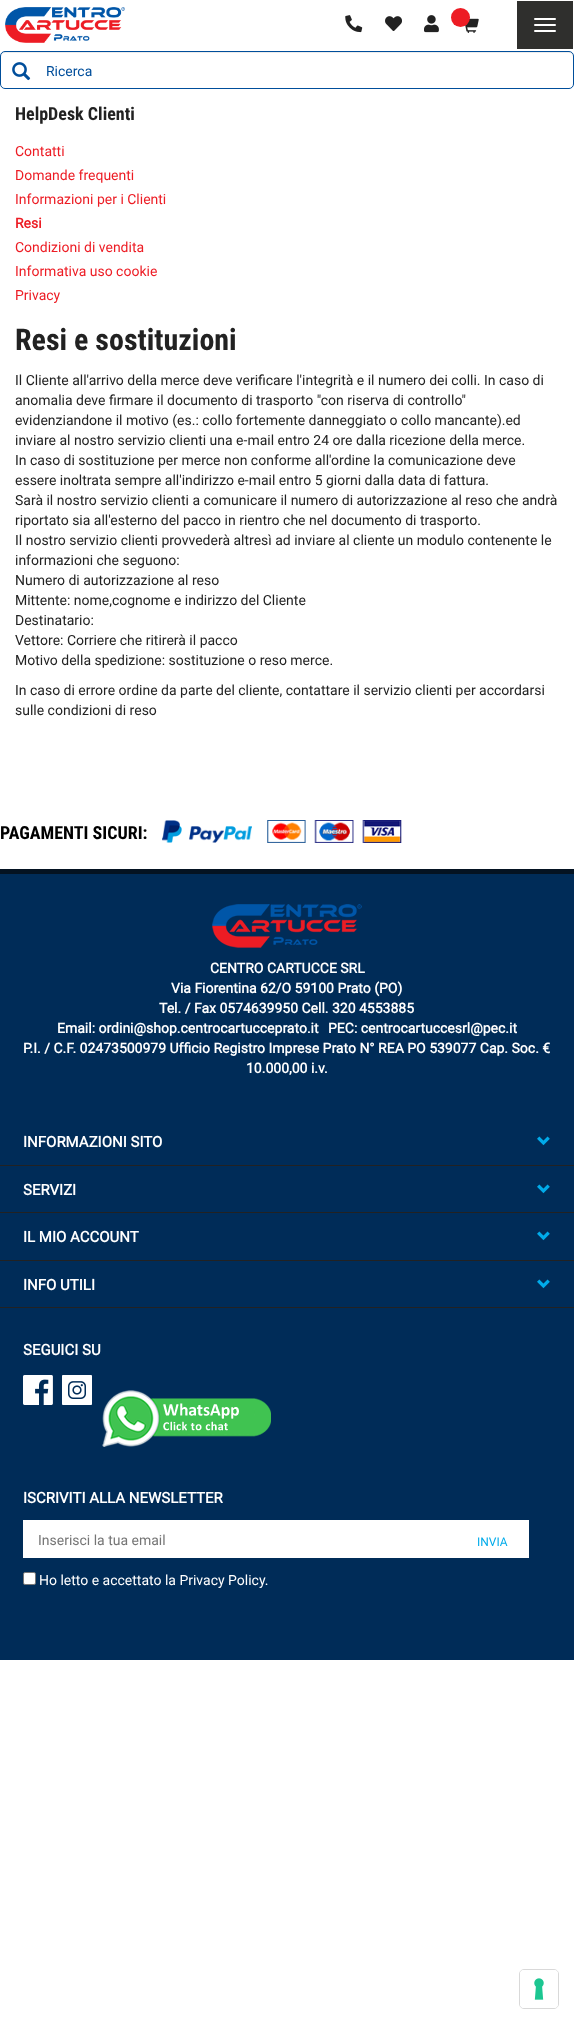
async function draw(canvas) {
  canvas.width = 574
  canvas.height = 2024
  const ctx = canvas.getContext('2d')
  ctx.miterLimit = 4
  ctx.fontKerning = 'normal'
  async function loadImage(src) {
    const img = new Image()
    img.src = src
    await img.decode()
    return img
  }

  ctx.fillStyle = '#fff'
  ctx.fillRect(0, 0, 574, 2024)
  ctx.drawImage(await loadImage('image0.png'), 5, 7, 120, 36)
  ctx.drawImage(await loadImage('image1.png'), 345, 15, 18, 18)
  ctx.drawImage(await loadImage('image2.png'), 385, 16, 17, 15)
  ctx.drawImage(await loadImage('image3.png'), 424, 15, 15, 18)
  ctx.drawImage(await loadImage('image4.png'), 465, 18, 14, 15)
  ctx.fillStyle = '#ed1c24'
  ctx.beginPath()
  ctx.arc(460.5, 17.5, 9.5, 0, 2 * Math.PI)
  ctx.fill()
  ctx.fillStyle = '#2f2f2d'
  ctx.fillRect(517, 1, 56, 48)
  ctx.fillStyle = '#fff'
  ctx.beginPath()
  ctx.roundRect(534, 18, 22, 2, 1)
  ctx.fill()
  ctx.beginPath()
  ctx.roundRect(534, 24, 22, 2, 1)
  ctx.fill()
  ctx.beginPath()
  ctx.roundRect(534, 30, 22, 2, 1)
  ctx.fill()
  ctx.fillStyle = '#ececec'
  ctx.beginPath()
  ctx.moveTo(5, 53)
  ctx.lineTo(569, 53)
  ctx.bezierCurveTo(571, 53, 573, 55, 573, 57)
  ctx.bezierCurveTo(573, 54, 572, 52, 569, 52)
  ctx.lineTo(5, 52)
  ctx.bezierCurveTo(2, 52, 1, 54, 1, 57)
  ctx.bezierCurveTo(1, 55, 3, 53, 5, 53)
  ctx.closePath()
  ctx.fill()
  ctx.beginPath()
  ctx.roundRect(0.5, 51.5, 573, 37, 4.5)
  ctx.strokeStyle = '#004e9b'
  ctx.stroke()
  ctx.drawImage(await loadImage('image5.png'), 12, 62, 19, 19)
  ctx.font = '14px Roboto'
  ctx.fillStyle = '#004e9b'
  ctx.fillText('Ricerca', 46, 76)
  ctx.font = 'bold 18px Roboto Condensed'
  ctx.fillStyle = '#222'
  ctx.fillText('HelpDesk Clienti', 15, 120)
  ctx.font = '14px Roboto'
  ctx.fillStyle = '#ed1c24'
  ctx.fillText('Contatti', 15, 156)
  ctx.fillText('Domande frequenti', 15, 180)
  ctx.fillText('Informazioni per i Clienti', 15, 204)
  ctx.font = 'bold 14px Roboto'
  ctx.fillText('Resi', 15, 228)
  ctx.font = '14px Roboto'
  ctx.fillText('Condizioni di vendita', 15, 252)
  ctx.fillText('Informativa uso cookie', 15, 276)
  ctx.fillText('Privacy', 15, 300)
  ctx.font = 'bold 30px Roboto Condensed'
  ctx.fillStyle = '#222'
  ctx.fillText('Resi e sostituzioni', 15, 350)
  ctx.font = '14px Roboto'
  ctx.fillText('Il Cliente all\'arrivo della merce deve verificare l\'integrità e il numero dei colli. In caso di', 15, 385)
  ctx.fillText('anomalia deve firmare il documento di trasporto "con riserva di controllo"', 15, 405)
  ctx.fillText('evidenziandone il motivo (es.: collo fortemente danneggiato o collo mancante).ed', 15, 425)
  ctx.fillText('inviare al nostro servizio clienti una e-mail entro 24 ore dalla ricezione della merce.', 15, 445)
  ctx.fillText('In caso di sostituzione per merce non conforme all\'ordine la comunicazione deve', 15, 465)
  ctx.fillText('essere inoltrata sempre all\'indirizzo e-mail entro 5 giorni dalla data di fattura.', 15, 485)
  ctx.fillText('Sarà il nostro servizio clienti a comunicare il numero di autorizzazione al reso che andrà', 15, 505)
  ctx.fillText('riportato sia all\'esterno del pacco in rientro che nel documento di trasporto.', 15, 525)
  ctx.fillText('Il nostro servizio clienti provvederà altresì ad inviare al cliente un modulo contenente le', 15, 545)
  ctx.fillText('informazioni che seguono:', 15, 565)
  ctx.fillText('Numero di autorizzazione al reso', 15, 585)
  ctx.fillText('Mittente: nome,cognome e indirizzo del Cliente', 15, 605)
  ctx.fillText('Destinatario:', 15, 625)
  ctx.fillText('Vettore: Corriere che ritirerà il pacco', 15, 645)
  ctx.fillText('Motivo della spedizione: sostituzione o reso merce.', 15, 665)
  ctx.fillText('In caso di errore ordine da parte del cliente, contattare il servizio clienti per accordarsi', 15, 695)
  ctx.fillText('sulle condizioni di reso', 15, 715)
  ctx.font = 'bold 18px Roboto Condensed'
  ctx.fillStyle = '#000'
  ctx.fillText('PAGAMENTI SICURI:', 0, 839)
  ctx.drawImage(await loadImage('image6.png'), 162, 820, 90, 23)
  ctx.drawImage(await loadImage('image7.png'), 267, 820, 135, 23)
  ctx.fillStyle = '#002c58'
  ctx.fillRect(0, 874, 574, 786)
  ctx.fillStyle = '#041322'
  ctx.fillRect(0, 869, 574, 5)
  ctx.drawImage(await loadImage('image8.png'), 212, 904, 150, 44)
  ctx.font = 'bold 14px Roboto'
  ctx.fillStyle = '#fff'
  ctx.fillText('CENTRO CARTUCCE SRL', 210, 973)
  ctx.fillText('Via Fiorentina 62/O 59100 Prato (PO)', 171, 993)
  ctx.fillText('Tel. / Fax 0574639950 Cell. 320 4553885', 159, 1013)
  ctx.fillText('Email: ordini@shop.centrocartucceprato.it', 57, 1033)
  ctx.fillText('PEC: centrocartuccesrl@pec.it', 328, 1033)
  ctx.fillText('P.I. / C.F. 02473500979 Ufficio Registro Imprese Prato N° REA PO 539077 Cap. Soc. €', 23, 1053)
  ctx.fillText('10.000,00 i.v.', 246, 1073)
  ctx.fillStyle = '#222'
  ctx.fillRect(0, 1165, 574, 1)
  ctx.font = 'bold 15px Roboto'
  ctx.fillStyle = '#fff'
  ctx.fillText('INFORMAZIONI SITO', 23, 1147)
  ctx.drawImage(await loadImage('image9.png'), 537, 1136, 13, 10)
  ctx.fillStyle = '#222'
  ctx.fillRect(0, 1212, 574, 1)
  ctx.fillStyle = '#fff'
  ctx.fillText('SERVIZI', 23, 1195)
  ctx.drawImage(await loadImage('image9.png'), 537, 1184, 13, 10)
  ctx.fillStyle = '#222'
  ctx.fillRect(0, 1260, 574, 1)
  ctx.fillStyle = '#fff'
  ctx.fillText('IL MIO ACCOUNT', 23, 1242)
  ctx.drawImage(await loadImage('image9.png'), 537, 1231, 13, 10)
  ctx.fillStyle = '#222'
  ctx.fillRect(0, 1307, 574, 1)
  ctx.fillStyle = '#fff'
  ctx.fillText('INFO UTILI', 23, 1290)
  ctx.drawImage(await loadImage('image9.png'), 537, 1279, 13, 10)
  ctx.fillText('SEGUICI SU', 23, 1355)
  ctx.drawImage(await loadImage('image10.png'), 23, 1375, 30, 30)
  ctx.drawImage(await loadImage('image11.png'), 62, 1375, 30, 30)
  ctx.drawImage(await loadImage('image12.png'), 102, 1390, 169, 57)
  ctx.fillText('ISCRIVITI ALLA NEWSLETTER', 23, 1503)
  ctx.fillRect(23, 1520, 506, 38)
  ctx.font = '14px Roboto'
  ctx.fillStyle = '#757575'
  ctx.fillText('Inserisci la tua email', 38, 1545)
  ctx.font = '12px Roboto'
  ctx.fillStyle = '#00abea'
  ctx.fillText('INVIA', 477, 1546)
  ctx.fillStyle = '#fff'
  ctx.beginPath()
  ctx.roundRect(23.5, 1572.5, 12, 12, 1.5)
  ctx.fill()
  ctx.strokeStyle = '#767676'
  ctx.stroke()
  ctx.font = '14px Roboto'
  ctx.fillText('Ho letto e accettato la Privacy Policy.', 39, 1585)
  ctx.beginPath()
  ctx.roundRect(519.5, 1969.5, 39, 39, 4.5)
  ctx.strokeStyle = '#d9d9d9'
  ctx.stroke()
  ctx.beginPath()
  ctx.roundRect(520, 1970, 38, 38, 4)
  ctx.fill()
  ctx.drawImage(await loadImage('image13.png'), 534, 1978, 10, 22)
}

draw(document.querySelector('canvas'))
